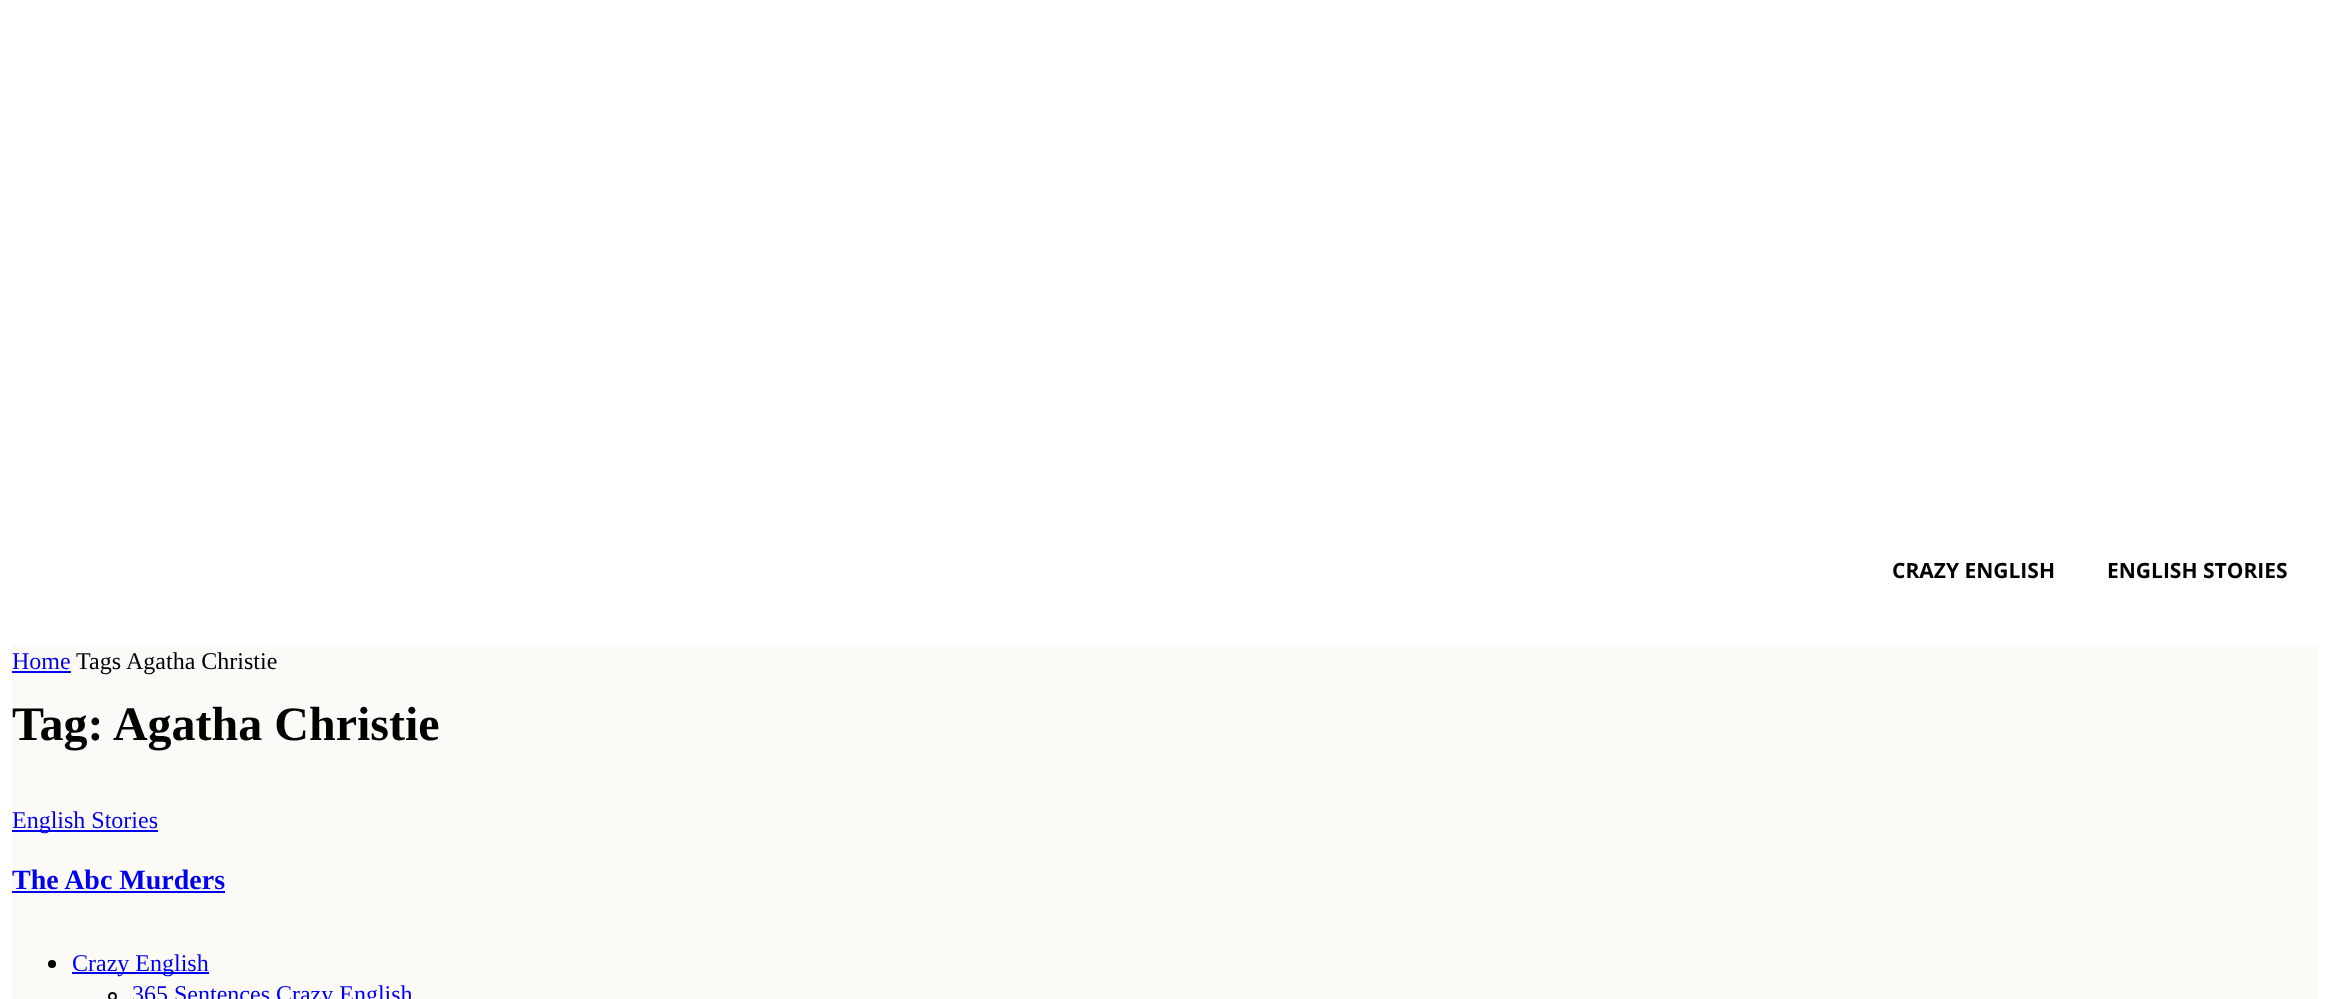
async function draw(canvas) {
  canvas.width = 2330
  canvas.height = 999
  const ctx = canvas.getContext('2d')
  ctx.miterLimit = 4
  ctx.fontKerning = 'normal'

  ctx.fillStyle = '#fff'
  ctx.fillRect(0, 0, 2330, 999)
  ctx.font = 'bold 21px Open Sans'
  ctx.fillStyle = '#000'
  ctx.fillText('CRAZY ENGLISH', 1892, 578)
  ctx.fillText('ENGLISH STORIES', 2107, 578)
  ctx.fillStyle = '#fcfaf6'
  ctx.fillRect(12, 645, 2307, 354)
  ctx.font = '24px Liberation Serif'
  ctx.fillStyle = '#00e'
  ctx.fillText('Home', 12, 669)
  ctx.fillRect(12, 671, 59, 2)
  ctx.fillStyle = '#000'
  ctx.fillText('Tags', 76, 669)
  ctx.fillText('Agatha Christie', 126, 669)
  ctx.font = 'bold 48px Liberation Serif'
  ctx.fillText('Tag: Agatha Christie', 12, 740)
  ctx.fillStyle = '#00e'
  ctx.fillRect(12, 830, 146, 2)
  ctx.font = '24px Liberation Serif'
  ctx.fillText('English Stories', 12, 828)
  ctx.font = 'bold 28px Liberation Serif'
  ctx.fillText('The Abc Murders', 12, 889)
  ctx.fillRect(12, 891, 213, 2)
  ctx.fillStyle = '#000'
  ctx.beginPath()
  ctx.arc(52, 964, 4, 0, 2 * Math.PI)
  ctx.fill()
  ctx.fillStyle = '#00e'
  ctx.fillRect(72, 972, 137, 2)
  ctx.font = '24px Liberation Serif'
  ctx.fillText('Crazy English', 72, 971)
  ctx.beginPath()
  ctx.arc(112.5, 996.5, 3.5, 0, 2 * Math.PI)
  ctx.strokeStyle = '#000'
  ctx.lineWidth = 2
  ctx.stroke()
  ctx.fillText('365 Sentences Crazy English', 132, 1002)
}

draw(document.querySelector('canvas'))
